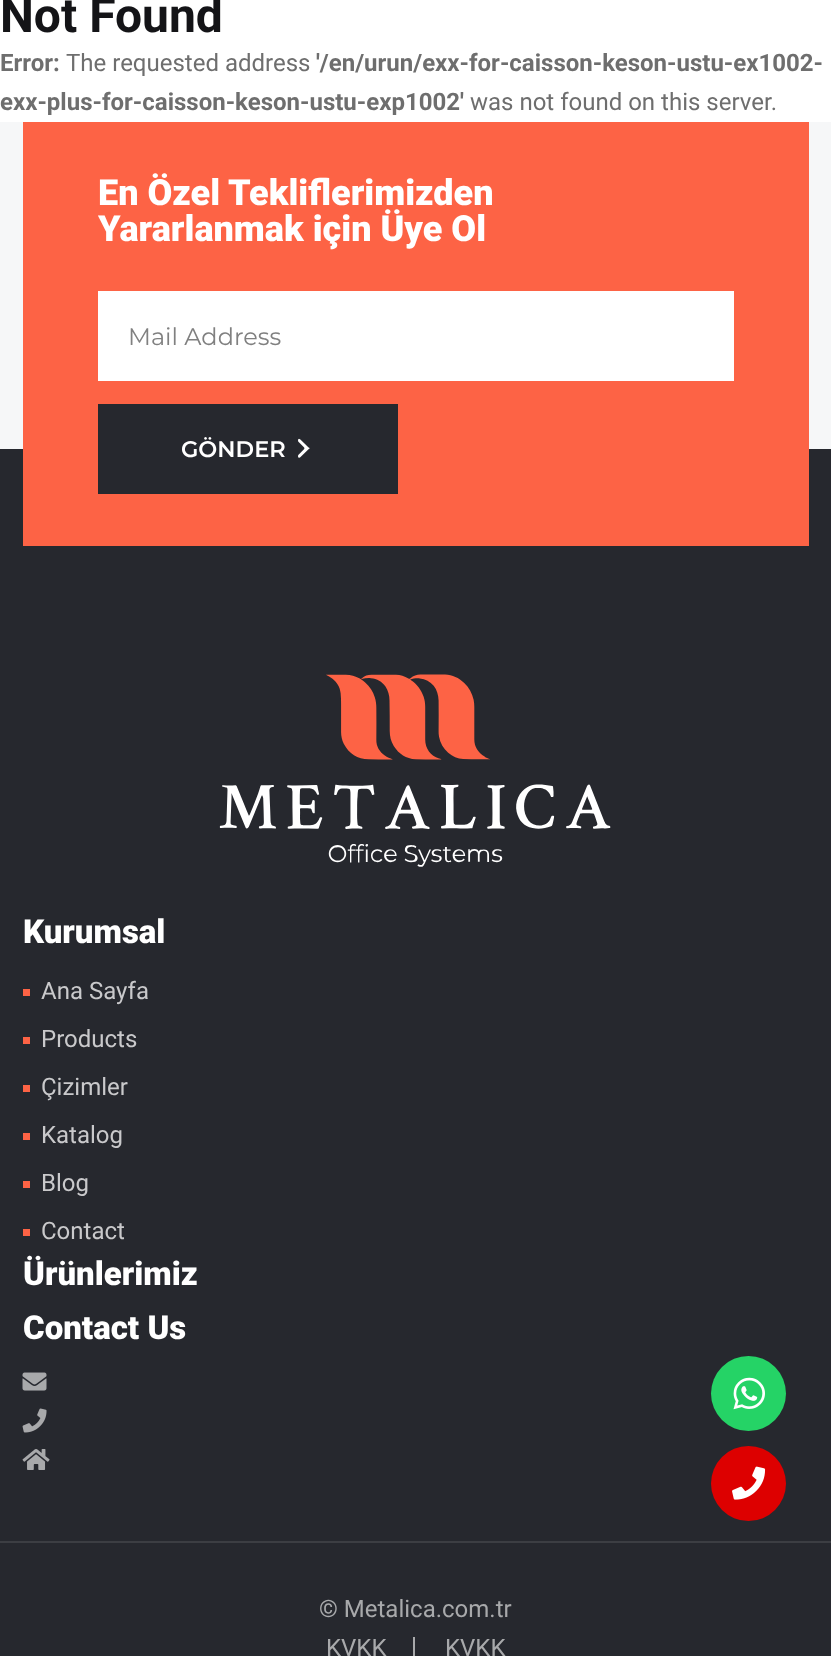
async function draw(canvas) {
  canvas.width = 831
  canvas.height = 1656
  const ctx = canvas.getContext('2d')
  ctx.miterLimit = 4
  ctx.fontKerning = 'normal'
  async function loadImage(src) {
    const img = new Image()
    img.src = src
    await img.decode()
    return img
  }

  ctx.fillStyle = '#fff'
  ctx.fillRect(0, 0, 831, 1656)
  ctx.font = 'bold 48px Roboto'
  ctx.fillStyle = '#141417'
  ctx.fillText('Not Found', 0, 32)
  ctx.font = 'bold 24px Roboto'
  ctx.fillStyle = '#6e6e6e'
  ctx.fillText('Error:', 0, 71)
  ctx.font = '24px Roboto'
  ctx.fillText('The requested address', 66, 71)
  ctx.font = 'bold 24px Roboto'
  ctx.fillText('\'/en/urun/exx-for-caisson-keson-ustu-ex1002-', 316, 71)
  ctx.fillText('exx-plus-for-caisson-keson-ustu-exp1002\'', 0, 110)
  ctx.font = '24px Roboto'
  ctx.fillText('was not found on this server.', 470, 110)
  ctx.fillStyle = '#f6f7f8'
  ctx.fillRect(0, 122, 831, 327)
  ctx.fillStyle = '#26282e'
  ctx.fillRect(0, 449, 831, 1207)
  ctx.fillStyle = '#fd6345'
  ctx.fillRect(23, 122, 786, 424)
  ctx.font = '900 36px Roboto'
  ctx.fillStyle = '#fff'
  ctx.fillText('En Özel Tekliflerimizden', 98, 205)
  ctx.fillText('Yararlanmak için Üye Ol', 98, 241)
  ctx.fillRect(98, 291, 636, 90)
  ctx.font = '24px Montserrat'
  ctx.fillStyle = '#808080'
  ctx.fillText('Mail Address', 128, 345)
  ctx.fillStyle = '#26282e'
  ctx.fillRect(98, 404, 300, 90)
  ctx.font = '600 22.5px Montserrat'
  ctx.fillStyle = '#fff'
  ctx.fillText('GÖNDER', 181, 457)
  ctx.drawImage(await loadImage('image0.png'), 298, 438, 12, 20)
  ctx.fillStyle = '#3c3e43'
  ctx.fillRect(0, 1541, 831, 2)
  ctx.drawImage(await loadImage('image1.png'), 219, 674, 392, 193)
  ctx.font = '900 33px Roboto'
  ctx.fillStyle = '#fff'
  ctx.fillText('Kurumsal', 23, 943)
  ctx.fillStyle = '#fd6345'
  ctx.fillRect(23, 989, 7, 7)
  ctx.font = '24px Roboto'
  ctx.fillStyle = '#c9c9cb'
  ctx.fillText('Ana Sayfa', 41, 999)
  ctx.fillStyle = '#fd6345'
  ctx.fillRect(23, 1037, 7, 7)
  ctx.fillStyle = '#c9c9cb'
  ctx.fillText('Products', 41, 1047)
  ctx.fillStyle = '#fd6345'
  ctx.fillRect(23, 1085, 7, 7)
  ctx.fillStyle = '#c9c9cb'
  ctx.fillText('Çizimler', 41, 1095)
  ctx.fillStyle = '#fd6345'
  ctx.fillRect(23, 1133, 7, 7)
  ctx.fillStyle = '#c9c9cb'
  ctx.fillText('Katalog', 41, 1143)
  ctx.fillStyle = '#fd6345'
  ctx.fillRect(23, 1181, 7, 7)
  ctx.fillStyle = '#c9c9cb'
  ctx.fillText('Blog', 41, 1191)
  ctx.fillStyle = '#fd6345'
  ctx.fillRect(23, 1229, 7, 7)
  ctx.fillStyle = '#c9c9cb'
  ctx.fillText('Contact', 41, 1239)
  ctx.font = '900 33px Roboto'
  ctx.fillStyle = '#fff'
  ctx.fillText('Ürünlerimiz', 23, 1285)
  ctx.fillText('Contact Us', 23, 1339)
  ctx.drawImage(await loadImage('image2.png'), 22, 1372, 25, 19)
  ctx.drawImage(await loadImage('image3.png'), 22, 1408, 25, 25)
  ctx.drawImage(await loadImage('image4.png'), 22, 1449, 28, 21)
  ctx.font = '24px Roboto'
  ctx.fillStyle = '#a8a9ab'
  ctx.fillText('© Metalica.com.tr', 319, 1617)
  ctx.fillText('KVKK', 326, 1656)
  ctx.fillRect(413, 1637, 2, 19)
  ctx.fillText('KVKK', 445, 1656)
  ctx.fillStyle = '#25d366'
  ctx.beginPath()
  ctx.arc(748.5, 1393.5, 37.5, 0, 2 * Math.PI)
  ctx.fill()
  ctx.drawImage(await loadImage('image5.png'), 733, 1377, 32, 33)
  ctx.fillStyle = '#d00'
  ctx.beginPath()
  ctx.arc(748.5, 1483.5, 37.5, 0, 2 * Math.PI)
  ctx.fill()
  ctx.drawImage(await loadImage('image6.png'), 732, 1466, 34, 34)
}

draw(document.querySelector('canvas'))
